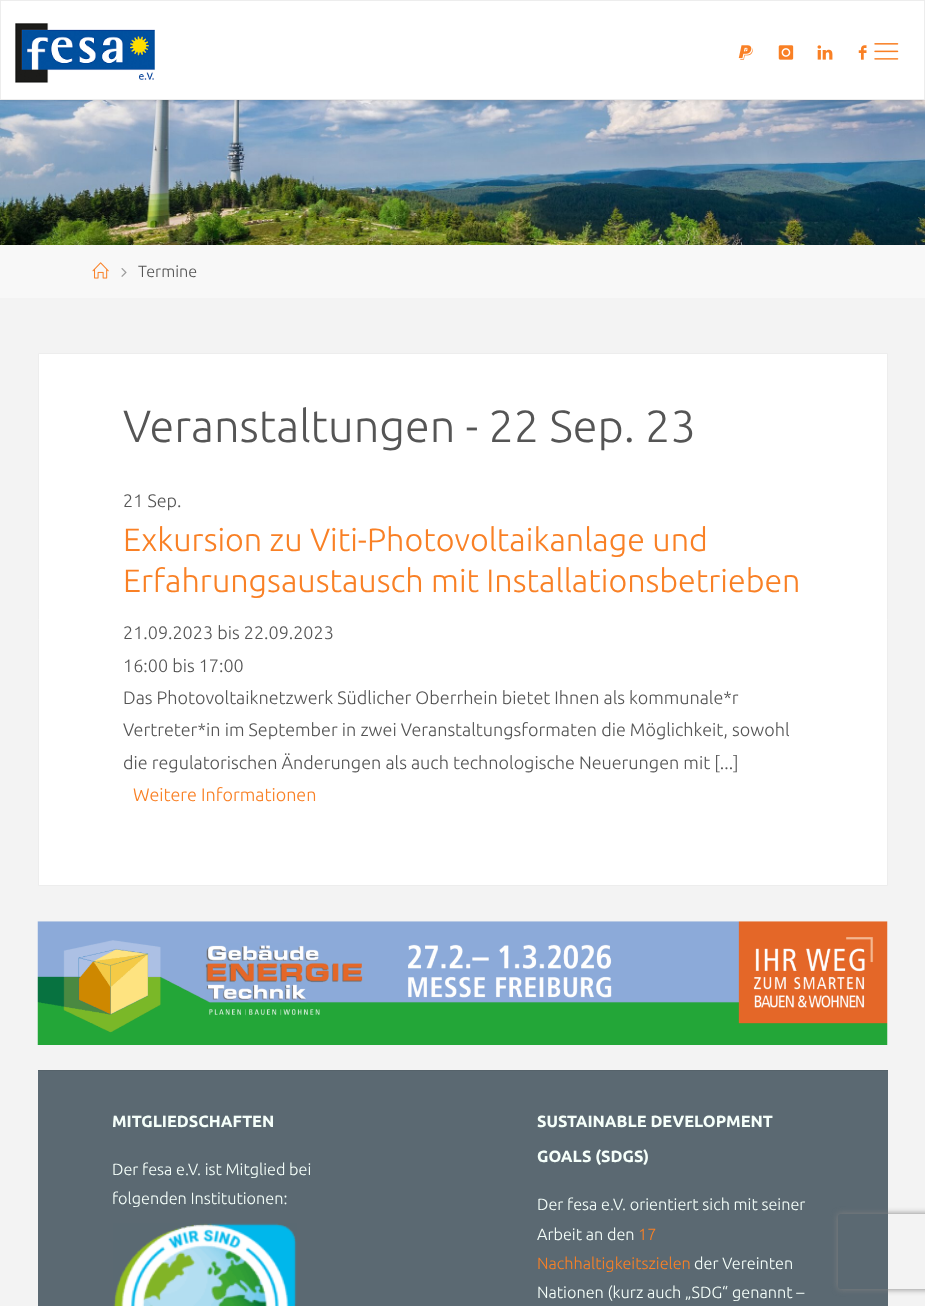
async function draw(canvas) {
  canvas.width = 925
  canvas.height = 1306
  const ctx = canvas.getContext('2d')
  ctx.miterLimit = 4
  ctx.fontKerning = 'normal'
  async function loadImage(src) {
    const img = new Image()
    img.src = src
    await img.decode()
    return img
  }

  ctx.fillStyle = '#f3f3f3'
  ctx.fillRect(0, 0, 925, 1306)
  ctx.drawImage(await loadImage('image6.png'), 0, 100, 925, 145)
  ctx.fillStyle = '#00000033'
  ctx.filter = 'blur(2px)'
  ctx.beginPath()
  ctx.rect(0, 0, 925, 100)
  ctx.fill()
  ctx.filter = 'none'
  ctx.fillStyle = '#fff'
  ctx.beginPath()
  ctx.rect(0.5, 0.5, 924, 99)
  ctx.fill()
  ctx.strokeStyle = '#ededed'
  ctx.stroke()
  ctx.drawImage(await loadImage('image0.png'), 15, 23, 140, 60)
  ctx.drawImage(await loadImage('image1.png'), 738, 45, 15, 15)
  ctx.drawImage(await loadImage('image2.png'), 778, 45, 16, 15)
  ctx.drawImage(await loadImage('image3.png'), 817, 45, 16, 15)
  ctx.drawImage(await loadImage('image4.png'), 858, 45, 9, 15)
  ctx.drawImage(await loadImage('image5.png'), 874, 43, 25, 17)
  ctx.fillStyle = '#f8f8f8'
  ctx.fillRect(0, 245, 925, 53)
  ctx.drawImage(await loadImage('image7.png'), 92, 262, 17, 17)
  ctx.drawImage(await loadImage('image8.png'), 121, 268, 6, 9)
  ctx.font = '300 16.25px Ubuntu'
  ctx.fillStyle = '#555'
  ctx.fillText('Termine', 138, 277)
  ctx.fillStyle = '#fff'
  ctx.beginPath()
  ctx.rect(38.5, 353.5, 849, 532)
  ctx.fill()
  ctx.stroke()
  ctx.font = '300 45px Ubuntu'
  ctx.fillStyle = '#555'
  ctx.fillText('Veranstaltungen - 22 Sep. 23', 123, 442)
  ctx.font = '300 18px Ubuntu'
  ctx.fillText('21 Sep.', 123, 507)
  ctx.font = '300 32.25px Ubuntu'
  ctx.fillStyle = '#f98025'
  ctx.fillText('Exkursion zu Viti-Photovoltaikanlage und', 123, 551)
  ctx.fillText('Erfahrungsaustausch mit Installationsbetrieben', 123, 592)
  ctx.font = '300 18px Ubuntu'
  ctx.fillStyle = '#555'
  ctx.fillText('21.09.2023 bis 22.09.2023', 123, 639)
  ctx.fillText('16:00 bis 17:00', 123, 672)
  ctx.fillText('Das Photovoltaiknetzwerk Südlicher Oberrhein bietet Ihnen als kommunale*r', 123, 704)
  ctx.fillText('Vertreter*in im September in zwei Veranstaltungsformaten die Möglichkeit, sowohl', 123, 736)
  ctx.fillText('die regulatorischen Änderungen als auch technologische Neuerungen mit [...]', 123, 769)
  ctx.fillStyle = '#f98025'
  ctx.fillText('Weitere Informationen', 133, 801)
  ctx.drawImage(await loadImage('image9.png'), 37, 921, 851, 124)
  ctx.fillStyle = '#5b6972'
  ctx.fillRect(38, 1071, 850, 235)
  ctx.fillStyle = '#55626a'
  ctx.fillRect(38, 1070, 850, 1)
  ctx.font = 'bold 16.25px Ubuntu'
  ctx.fillStyle = '#f5fffa'
  ctx.fillText('MITGLIEDSCHAFTEN', 112, 1127)
  ctx.font = '300 16.25px Ubuntu'
  ctx.fillText('Der fesa e.V. ist Mitglied bei', 112, 1175)
  ctx.fillText('folgenden Institutionen:', 112, 1204)
  ctx.drawImage(await loadImage('image10.png'), 113, 1223, 184, 83)
  ctx.font = 'bold 16.25px Ubuntu'
  ctx.fillText('SUSTAINABLE DEVELOPMENT', 537, 1127)
  ctx.fillText('GOALS (SDGS)', 537, 1162)
  ctx.font = '300 16.25px Ubuntu'
  ctx.fillText('Der fesa e.V. orientiert sich mit seiner', 537, 1210)
  ctx.fillText('Arbeit an den', 537, 1240)
  ctx.fillStyle = '#f98025'
  ctx.fillText('17', 638, 1240)
  ctx.fillText('Nachhaltigkeitszielen', 537, 1269)
  ctx.fillStyle = '#f5fffa'
  ctx.fillText('der Vereinten', 694, 1269)
  ctx.fillText('Nationen (kurz auch „SDG“ genannt –', 537, 1298)
  ctx.save()
  ctx.beginPath()
  ctx.moveTo(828, 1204)
  ctx.lineTo(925, 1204)
  ctx.lineTo(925, 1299)
  ctx.lineTo(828, 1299)
  ctx.closePath()
  ctx.moveTo(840.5, 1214)
  ctx.lineTo(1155.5, 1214)
  ctx.bezierCurveTo(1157, 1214, 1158, 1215, 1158, 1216.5)
  ctx.lineTo(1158, 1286.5)
  ctx.bezierCurveTo(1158, 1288, 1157, 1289, 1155.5, 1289)
  ctx.lineTo(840.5, 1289)
  ctx.bezierCurveTo(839, 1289, 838, 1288, 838, 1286.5)
  ctx.lineTo(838, 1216.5)
  ctx.bezierCurveTo(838, 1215, 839, 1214, 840.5, 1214)
  ctx.closePath()
  ctx.clip('evenodd')
  ctx.fillStyle = '#808080'
  ctx.filter = 'blur(3px)'
  ctx.beginPath()
  ctx.roundRect(838, 1214, 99, 75, 2.5)
  ctx.fill()
  ctx.filter = 'none'
  ctx.restore()
}

draw(document.querySelector('canvas'))
